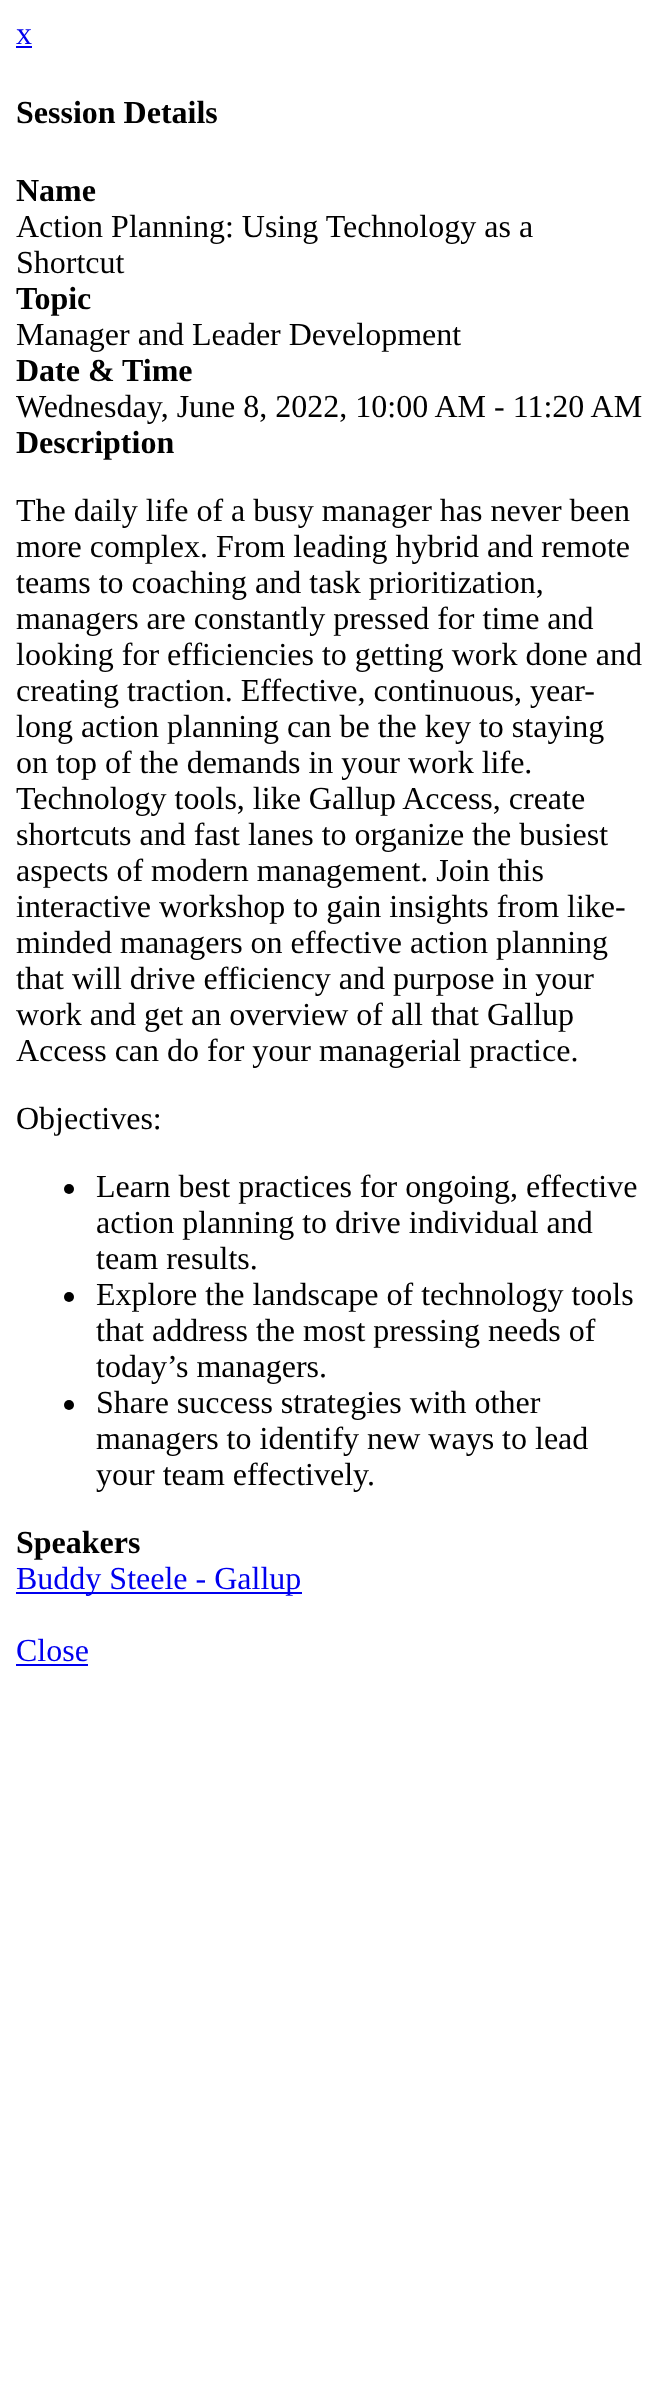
async function draw(canvas) {
  canvas.width = 659
  canvas.height = 2408
  const ctx = canvas.getContext('2d')
  ctx.miterLimit = 4
  ctx.fontKerning = 'normal'

  ctx.fillStyle = '#fff'
  ctx.fillRect(0, 0, 659, 2408)
  ctx.font = '32px Liberation Serif'
  ctx.fillStyle = '#00e'
  ctx.fillText('x', 16, 44)
  ctx.fillRect(16, 46, 16, 2)
  ctx.font = 'bold 32px Liberation Serif'
  ctx.fillStyle = '#000'
  ctx.fillText('Session Details', 16, 123)
  ctx.fillText('Name', 16, 201)
  ctx.font = '32px Liberation Serif'
  ctx.fillText('Action Planning: Using Technology as a', 16, 237)
  ctx.fillText('Shortcut', 16, 273)
  ctx.font = 'bold 32px Liberation Serif'
  ctx.fillText('Topic', 16, 309)
  ctx.font = '32px Liberation Serif'
  ctx.fillText('Manager and Leader Development', 16, 345)
  ctx.font = 'bold 32px Liberation Serif'
  ctx.fillText('Date & Time', 16, 381)
  ctx.font = '32px Liberation Serif'
  ctx.fillText('Wednesday, June 8, 2022, 10:00 AM - 11:20 AM', 16, 417)
  ctx.font = 'bold 32px Liberation Serif'
  ctx.fillText('Description', 16, 453)
  ctx.font = '32px Liberation Serif'
  ctx.fillText('The daily life of a busy manager has never been', 16, 521)
  ctx.fillText('more complex. From leading hybrid and remote', 16, 557)
  ctx.fillText('teams to coaching and task prioritization,', 16, 593)
  ctx.fillText('managers are constantly pressed for time and', 16, 629)
  ctx.fillText('looking for efficiencies to getting work done and', 16, 665)
  ctx.fillText('creating traction. Effective, continuous, year-', 16, 701)
  ctx.fillText('long action planning can be the key to staying', 16, 737)
  ctx.fillText('on top of the demands in your work life.', 16, 773)
  ctx.fillText('Technology tools, like Gallup Access, create', 16, 809)
  ctx.fillText('shortcuts and fast lanes to organize the busiest', 16, 845)
  ctx.fillText('aspects of modern management. Join this', 16, 881)
  ctx.fillText('interactive workshop to gain insights from like-', 16, 917)
  ctx.fillText('minded managers on effective action planning', 16, 953)
  ctx.fillText('that will drive efficiency and purpose in your', 16, 989)
  ctx.fillText('work and get an overview of all that Gallup', 16, 1025)
  ctx.fillText('Access can do for your managerial practice.', 16, 1061)
  ctx.fillText('Objectives:', 16, 1129)
  ctx.beginPath()
  ctx.arc(69, 1189, 5, 0, 2 * Math.PI)
  ctx.fill()
  ctx.fillText('Learn best practices for ongoing, effective', 96, 1197)
  ctx.fillText('action planning to drive individual and', 96, 1233)
  ctx.fillText('team results.', 96, 1269)
  ctx.beginPath()
  ctx.arc(69, 1297, 5, 0, 2 * Math.PI)
  ctx.fill()
  ctx.fillText('Explore the landscape of technology tools', 96, 1305)
  ctx.fillText('that address the most pressing needs of', 96, 1341)
  ctx.fillText('today’s managers.', 96, 1377)
  ctx.beginPath()
  ctx.arc(69, 1405, 5, 0, 2 * Math.PI)
  ctx.fill()
  ctx.fillText('Share success strategies with other', 96, 1413)
  ctx.fillText('managers to identify new ways to lead', 96, 1449)
  ctx.fillText('your team effectively.', 96, 1485)
  ctx.font = 'bold 32px Liberation Serif'
  ctx.fillText('Speakers', 16, 1553)
  ctx.fillStyle = '#00e'
  ctx.fillRect(16, 1592, 286, 2)
  ctx.font = '32px Liberation Serif'
  ctx.fillText('Buddy Steele - Gallup', 16, 1589)
  ctx.fillText('Close', 16, 1661)
  ctx.fillRect(16, 1664, 72, 2)
}

draw(document.querySelector('canvas'))
